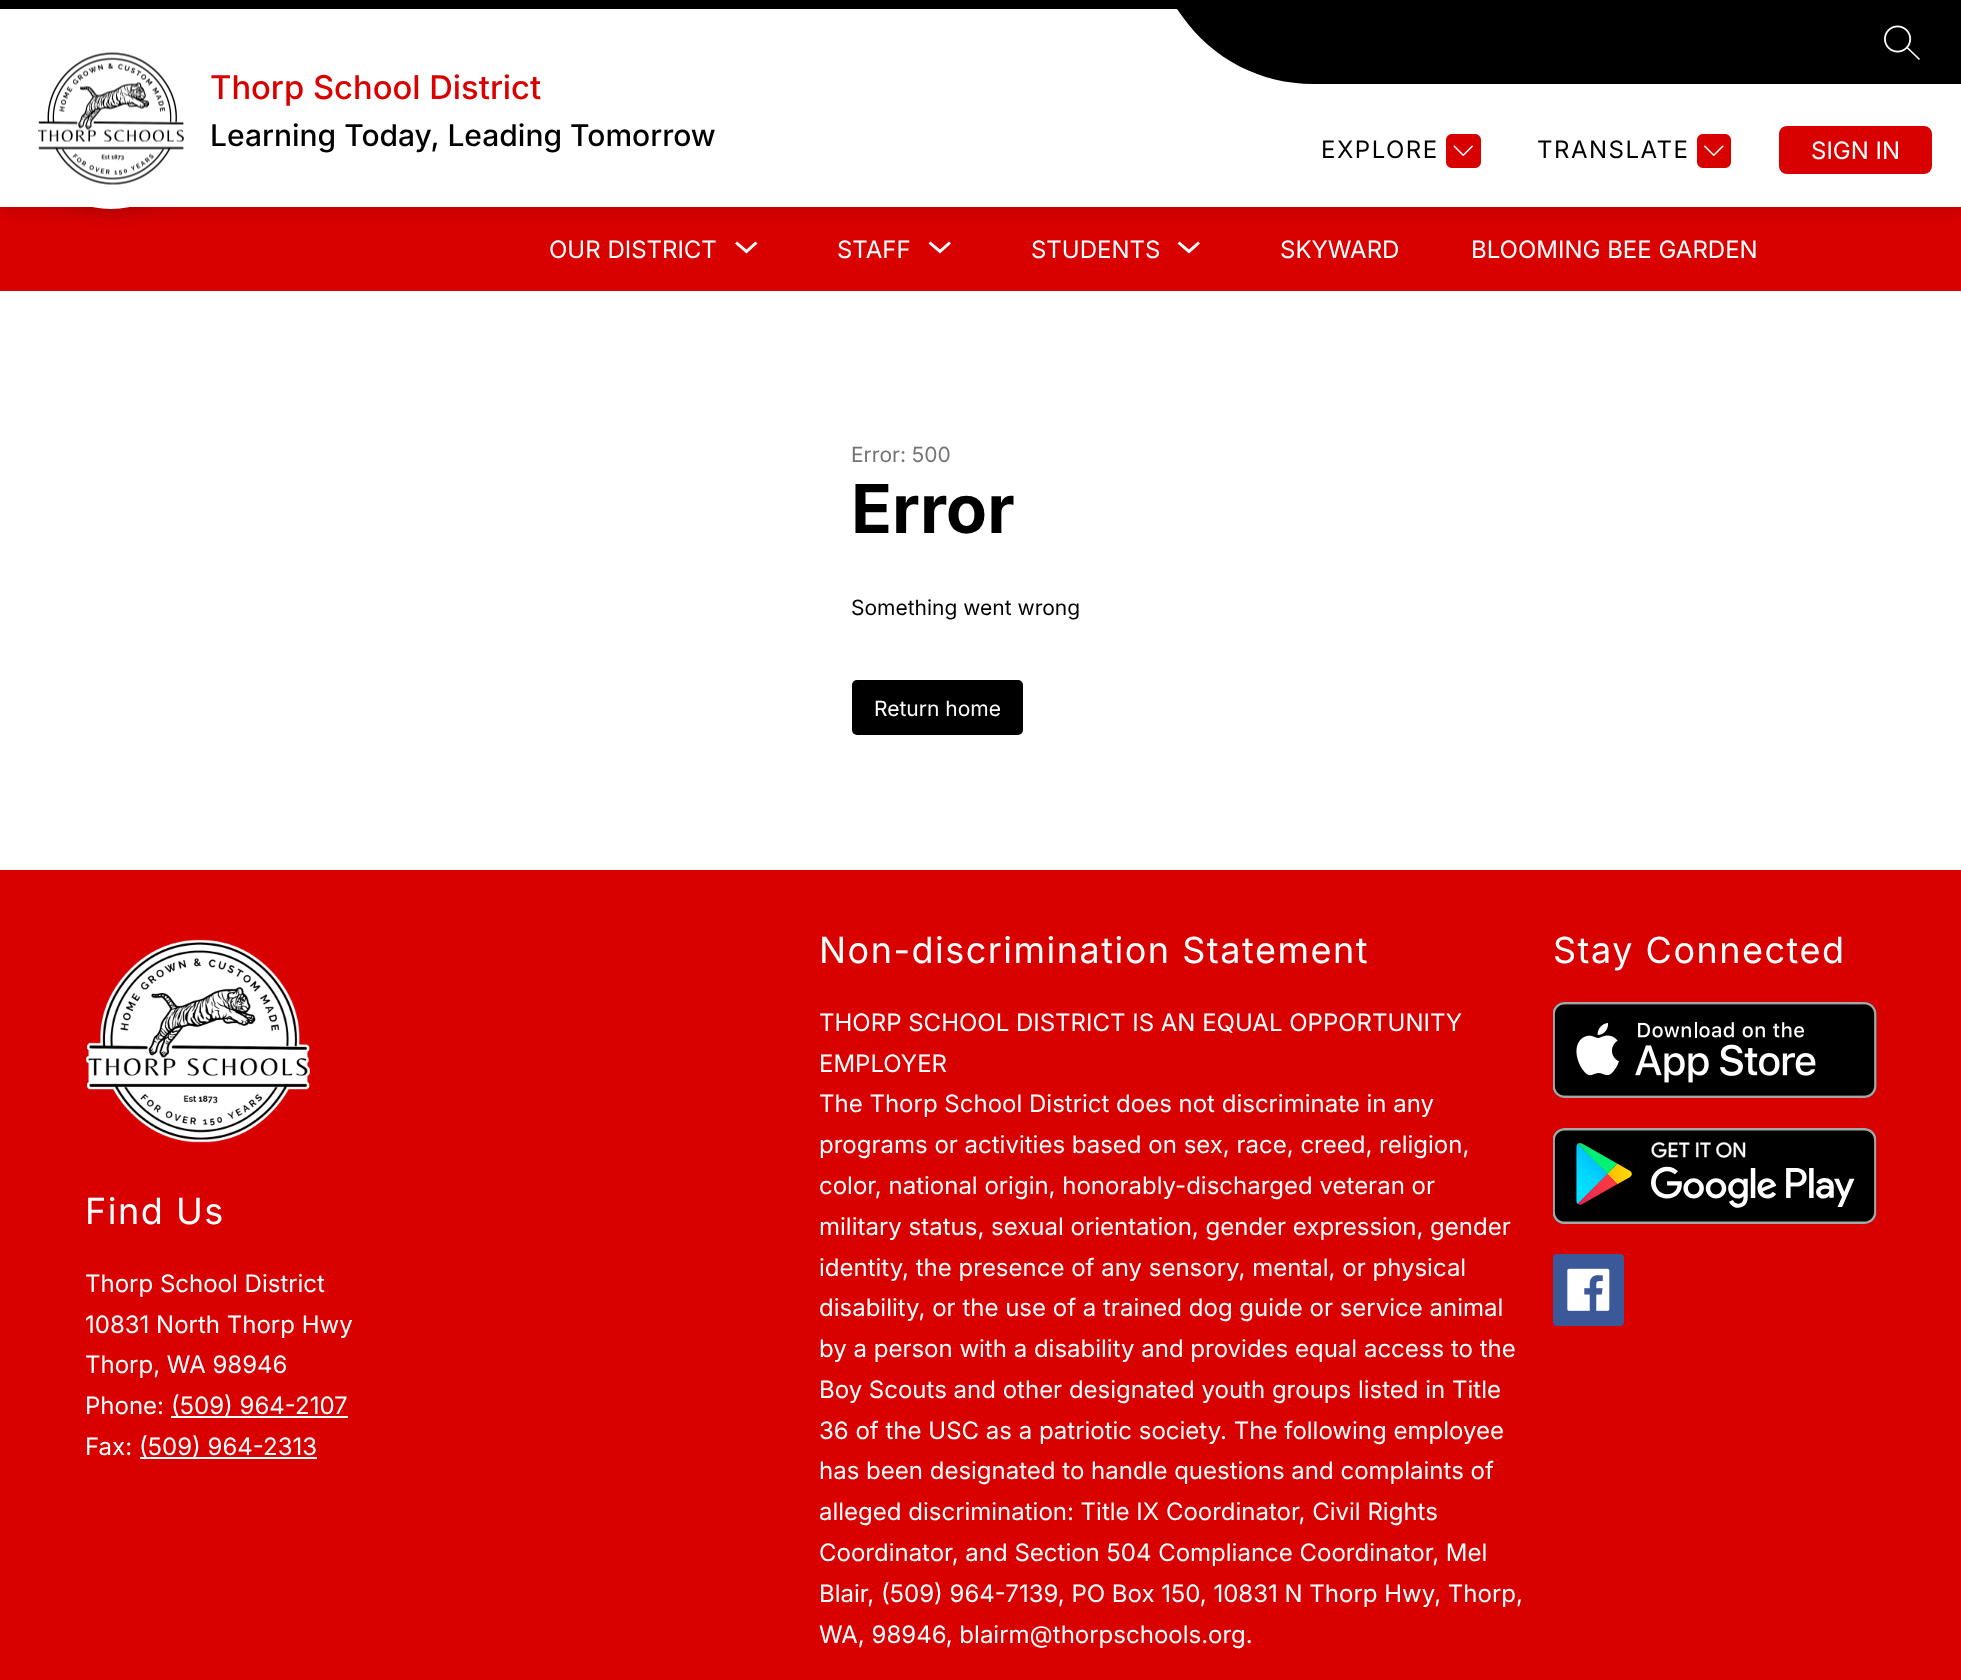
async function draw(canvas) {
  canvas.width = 1961
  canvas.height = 1680
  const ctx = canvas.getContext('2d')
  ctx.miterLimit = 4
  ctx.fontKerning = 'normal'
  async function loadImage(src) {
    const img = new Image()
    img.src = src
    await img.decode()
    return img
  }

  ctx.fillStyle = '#fff'
  ctx.fillRect(0, 0, 1961, 1680)
  ctx.fillStyle = '#d90000'
  ctx.fillRect(0, 207, 1961, 84)
  ctx.fillStyle = '#0000001a'
  ctx.filter = 'blur(7.5px)'
  ctx.beginPath()
  ctx.rect(0, 6, 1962, 207)
  ctx.fill()
  ctx.filter = 'none'
  ctx.filter = 'blur(7.5px)'
  ctx.beginPath()
  ctx.roundRect(21, 35, 180, 180, 90)
  ctx.fill()
  ctx.filter = 'none'
  ctx.fillStyle = '#fff'
  ctx.beginPath()
  ctx.arc(111, 119, 90, 0, 2 * Math.PI)
  ctx.fill()
  ctx.fillRect(0, 9, 1961, 198)
  ctx.fillStyle = '#000'
  ctx.fillRect(0, 0, 1177, 9)
  ctx.drawImage(await loadImage('image0.png'), 38, 52, 146, 133)
  ctx.font = '500 32.75px Inter'
  ctx.fillStyle = '#d90000'
  ctx.fillText('Thorp School District', 210, 99)
  ctx.font = '500 30px Inter'
  ctx.fillStyle = '#000'
  ctx.fillText('Learning Today, Leading Tomorrow', 210, 146)
  ctx.fillRect(1317, 0, 644, 84)
  ctx.beginPath()
  ctx.moveTo(1313, 84)
  ctx.lineTo(1317, 84)
  ctx.lineTo(1317, 0)
  ctx.lineTo(1173, 0)
  ctx.bezierCurveTo(1172, 0, 1171, 1, 1172, 2)
  ctx.lineTo(1182, 16)
  ctx.bezierCurveTo(1212, 59, 1261, 84, 1313, 84)
  ctx.closePath()
  ctx.fill()
  ctx.drawImage(await loadImage('image1.png'), 1884, 25, 36, 35)
  ctx.letterSpacing = '1.5px'
  ctx.font = '24px Inter'
  ctx.fillText('EXPLORE', 1321, 158)
  ctx.drawImage(await loadImage('image2.png'), 1446, 134, 35, 34)
  ctx.fillText('TRANSLATE', 1537, 158)
  ctx.drawImage(await loadImage('image3.png'), 1697, 134, 34, 34)
  ctx.fillStyle = '#d90000'
  ctx.beginPath()
  ctx.roundRect(1780, 127, 151, 46, 7)
  ctx.fill()
  ctx.strokeStyle = '#d90000'
  ctx.lineWidth = 2
  ctx.stroke()
  ctx.letterSpacing = '0px'
  ctx.fillStyle = '#fff'
  ctx.fillText('SIGN IN', 1811, 159)
  ctx.fillText('OUR DISTRICT', 549, 258)
  ctx.beginPath()
  ctx.moveTo(755.5, 241.5)
  ctx.lineTo(746.5, 249.5)
  ctx.lineTo(737, 241.5)
  ctx.lineTo(735, 243.5)
  ctx.lineTo(746.5, 253.5)
  ctx.lineTo(757.5, 243.5)
  ctx.closePath()
  ctx.fill('evenodd')
  ctx.fillText('STAFF', 837, 258)
  ctx.beginPath()
  ctx.moveTo(949, 241.5)
  ctx.lineTo(940, 249.5)
  ctx.lineTo(930.5, 241.5)
  ctx.lineTo(928.5, 243.5)
  ctx.lineTo(940, 253.5)
  ctx.lineTo(951, 243.5)
  ctx.closePath()
  ctx.fill('evenodd')
  ctx.fillText('STUDENTS', 1031, 258)
  ctx.beginPath()
  ctx.moveTo(1198, 241.5)
  ctx.lineTo(1189, 249.5)
  ctx.lineTo(1179.5, 241.5)
  ctx.lineTo(1177.5, 243.5)
  ctx.lineTo(1189, 253.5)
  ctx.lineTo(1200, 243.5)
  ctx.closePath()
  ctx.fill('evenodd')
  ctx.fillText('SKYWARD', 1280, 258)
  ctx.fillText('BLOOMING BEE GARDEN', 1471, 258)
  ctx.font = '21px Inter'
  ctx.fillStyle = '#747474'
  ctx.fillText('Error: 500', 851, 462)
  ctx.font = 'bold 67.5px Inter'
  ctx.fillStyle = '#000'
  ctx.fillText('Error', 851, 533)
  ctx.font = '21px Inter'
  ctx.fillText('Something went wrong', 851, 615)
  ctx.beginPath()
  ctx.roundRect(852, 680, 171, 55, 5)
  ctx.fill()
  ctx.fillStyle = '#fff'
  ctx.fillText('Return home', 874, 716)
  ctx.fillStyle = '#d90000'
  ctx.fillRect(0, 870, 1961, 810)
  ctx.letterSpacing = '1.5px'
  ctx.font = '36px Inter'
  ctx.fillStyle = '#fff'
  ctx.fillText('Non-discrimination Statement', 819, 963)
  ctx.letterSpacing = '0px'
  ctx.font = '24px Inter'
  ctx.fillText('THORP SCHOOL DISTRICT IS AN EQUAL OPPORTUNITY', 819, 1031)
  ctx.fillText('EMPLOYER', 819, 1072)
  ctx.fillText('The Thorp School District does not discriminate in any', 819, 1112)
  ctx.fillText('programs or activities based on sex, race, creed, religion,', 819, 1153)
  ctx.fillText('color, national origin, honorably-discharged veteran or', 819, 1194)
  ctx.fillText('military status, sexual orientation, gender expression, gender', 819, 1235)
  ctx.fillText('identity, the presence of any sensory, mental, or physical', 819, 1276)
  ctx.fillText('disability, or the use of a trained dog guide or service animal', 819, 1316)
  ctx.fillText('by a person with a disability and provides equal access to the', 819, 1357)
  ctx.fillText('Boy Scouts and other designated youth groups listed in Title', 819, 1398)
  ctx.fillText('36 of the USC as a patriotic society. The following employee', 819, 1439)
  ctx.fillText('has been designated to handle questions and complaints of', 819, 1479)
  ctx.fillText('alleged discrimination: Title IX Coordinator, Civil Rights', 819, 1520)
  ctx.fillText('Coordinator, and Section 504 Compliance Coordinator, Mel', 819, 1561)
  ctx.fillText('Blair, (509) 964-7139, PO Box 150, 10831 N Thorp Hwy, Thorp,', 819, 1602)
  ctx.fillText('WA, 98946, blairm@thorpschools.org.', 819, 1643)
  ctx.letterSpacing = '1.5px'
  ctx.font = '36px Inter'
  ctx.fillText('Stay Connected', 1553, 963)
  ctx.drawImage(await loadImage('image4.png'), 1553, 1002, 324, 96)
  ctx.drawImage(await loadImage('image5.png'), 1553, 1128, 324, 96)
  ctx.drawImage(await loadImage('image6.png'), 1553, 1254, 71, 72)
  ctx.drawImage(await loadImage('image7.png'), 86, 939, 224, 204)
  ctx.fillText('Find Us', 85, 1224)
  ctx.letterSpacing = '0px'
  ctx.font = '24px Inter'
  ctx.fillText('Thorp School District', 85, 1292)
  ctx.fillText('10831 North Thorp Hwy', 85, 1333)
  ctx.fillText('Thorp, WA 98946', 85, 1373)
  ctx.fillText('Phone:', 85, 1414)
  ctx.fillRect(171, 1416, 177, 2)
  ctx.fillText('(509) 964-2107', 171, 1414)
  ctx.fillText('Fax:', 85, 1455)
  ctx.fillRect(140, 1457, 177, 2)
  ctx.fillText('(509) 964-2313', 139, 1455)
}

draw(document.querySelector('canvas'))
